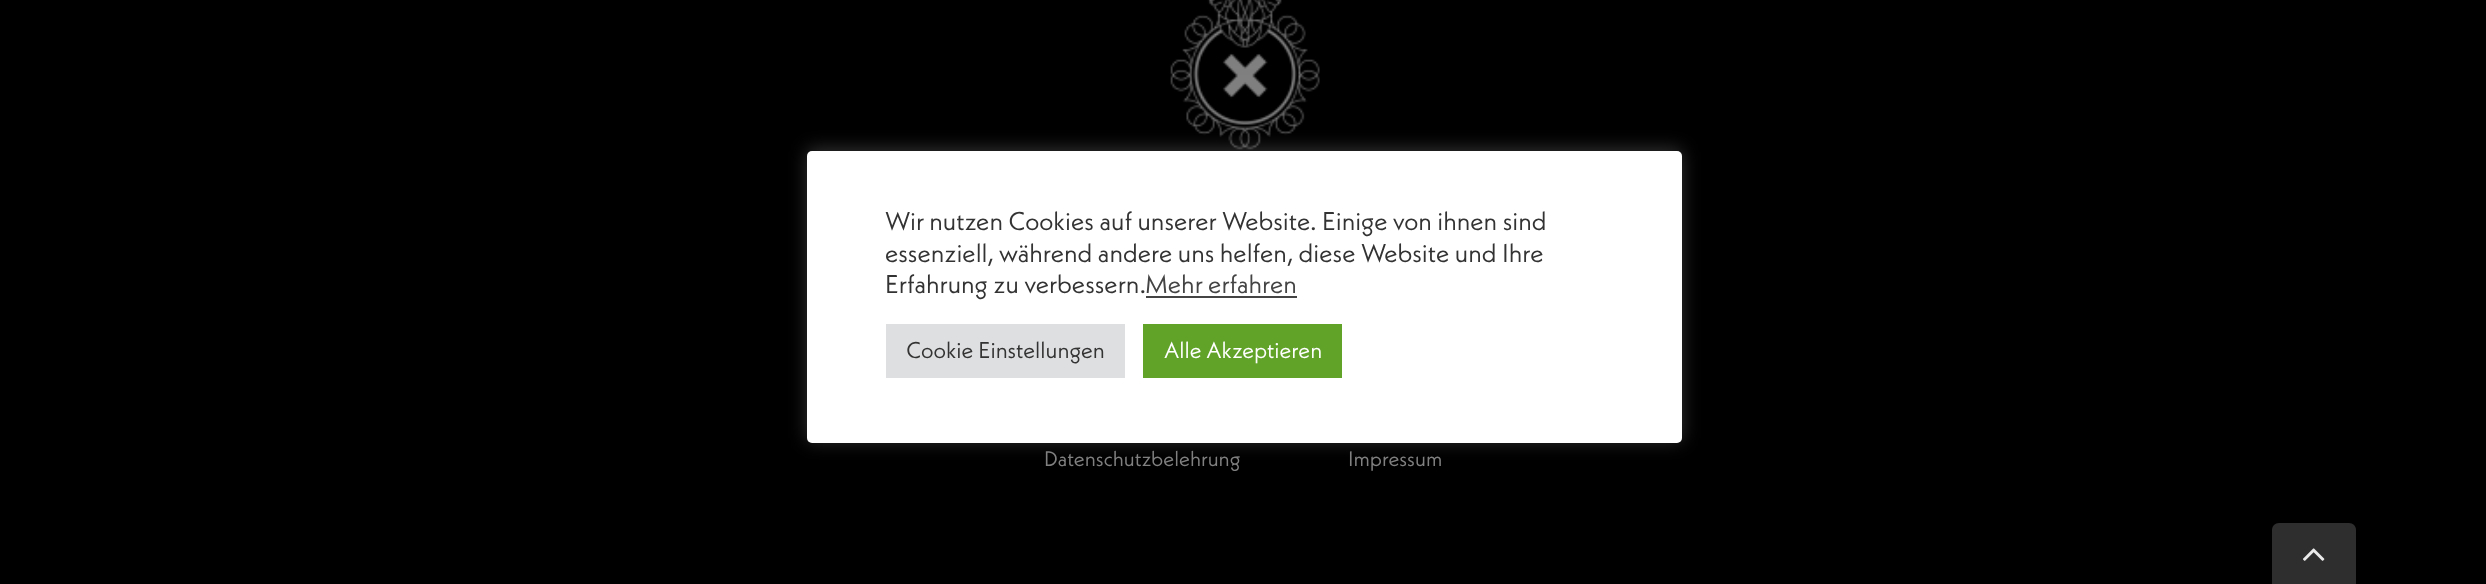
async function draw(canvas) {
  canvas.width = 2486
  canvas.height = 584
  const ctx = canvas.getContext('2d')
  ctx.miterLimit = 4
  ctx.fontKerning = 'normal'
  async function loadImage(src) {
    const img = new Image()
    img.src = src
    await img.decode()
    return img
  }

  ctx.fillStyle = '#000'
  ctx.fillRect(0, 0, 2486, 584)
  ctx.drawImage(await loadImage('image0.png'), 1170, 0, 150, 150)
  ctx.fillStyle = '#acabab4d'
  ctx.filter = 'blur(9px)'
  ctx.beginPath()
  ctx.roundRect(807, 149, 875, 292, 5)
  ctx.fill()
  ctx.filter = 'none'
  ctx.fillStyle = '#fff'
  ctx.beginPath()
  ctx.roundRect(807, 151, 875, 292, 5)
  ctx.fill()
  ctx.font = '25.7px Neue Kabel'
  ctx.fillStyle = '#333'
  ctx.fillText('Wir nutzen Cookies auf unserer Website. Einige von ihnen sind', 885, 230)
  ctx.fillText('essenziell, während andere uns helfen, diese Website und Ihre', 885, 262)
  ctx.fillText('Erfahrung zu verbessern.', 885, 293)
  ctx.fillStyle = '#444'
  ctx.fillText('Mehr erfahren', 1145, 293)
  ctx.fillRect(1146, 296, 151, 2)
  ctx.fillStyle = '#dedfe0'
  ctx.fillRect(886, 324, 239, 54)
  ctx.font = '22.75px Neue Kabel'
  ctx.fillStyle = '#333'
  ctx.fillText('Cookie Einstellungen', 906, 358)
  ctx.fillStyle = '#61a229'
  ctx.fillRect(1143, 324, 199, 54)
  ctx.fillStyle = '#fff'
  ctx.fillText('Alle Akzeptieren', 1164, 358)
  ctx.font = '21px Neue Kabel'
  ctx.fillStyle = '#808080'
  ctx.fillText('Datenschutzbelehrung', 1044, 466)
  ctx.fillText('Impressum', 1348, 466)
  ctx.fillStyle = '#2e2e2e'
  ctx.beginPath()
  ctx.moveTo(2279, 523)
  ctx.lineTo(2349, 523)
  ctx.bezierCurveTo(2353, 523, 2356, 526, 2356, 530)
  ctx.lineTo(2356, 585)
  ctx.lineTo(2272, 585)
  ctx.lineTo(2272, 530)
  ctx.bezierCurveTo(2272, 526, 2275, 523, 2279, 523)
  ctx.closePath()
  ctx.fill()
  ctx.drawImage(await loadImage('image1.png'), 2303, 548, 22, 13)
}

draw(document.querySelector('canvas'))
